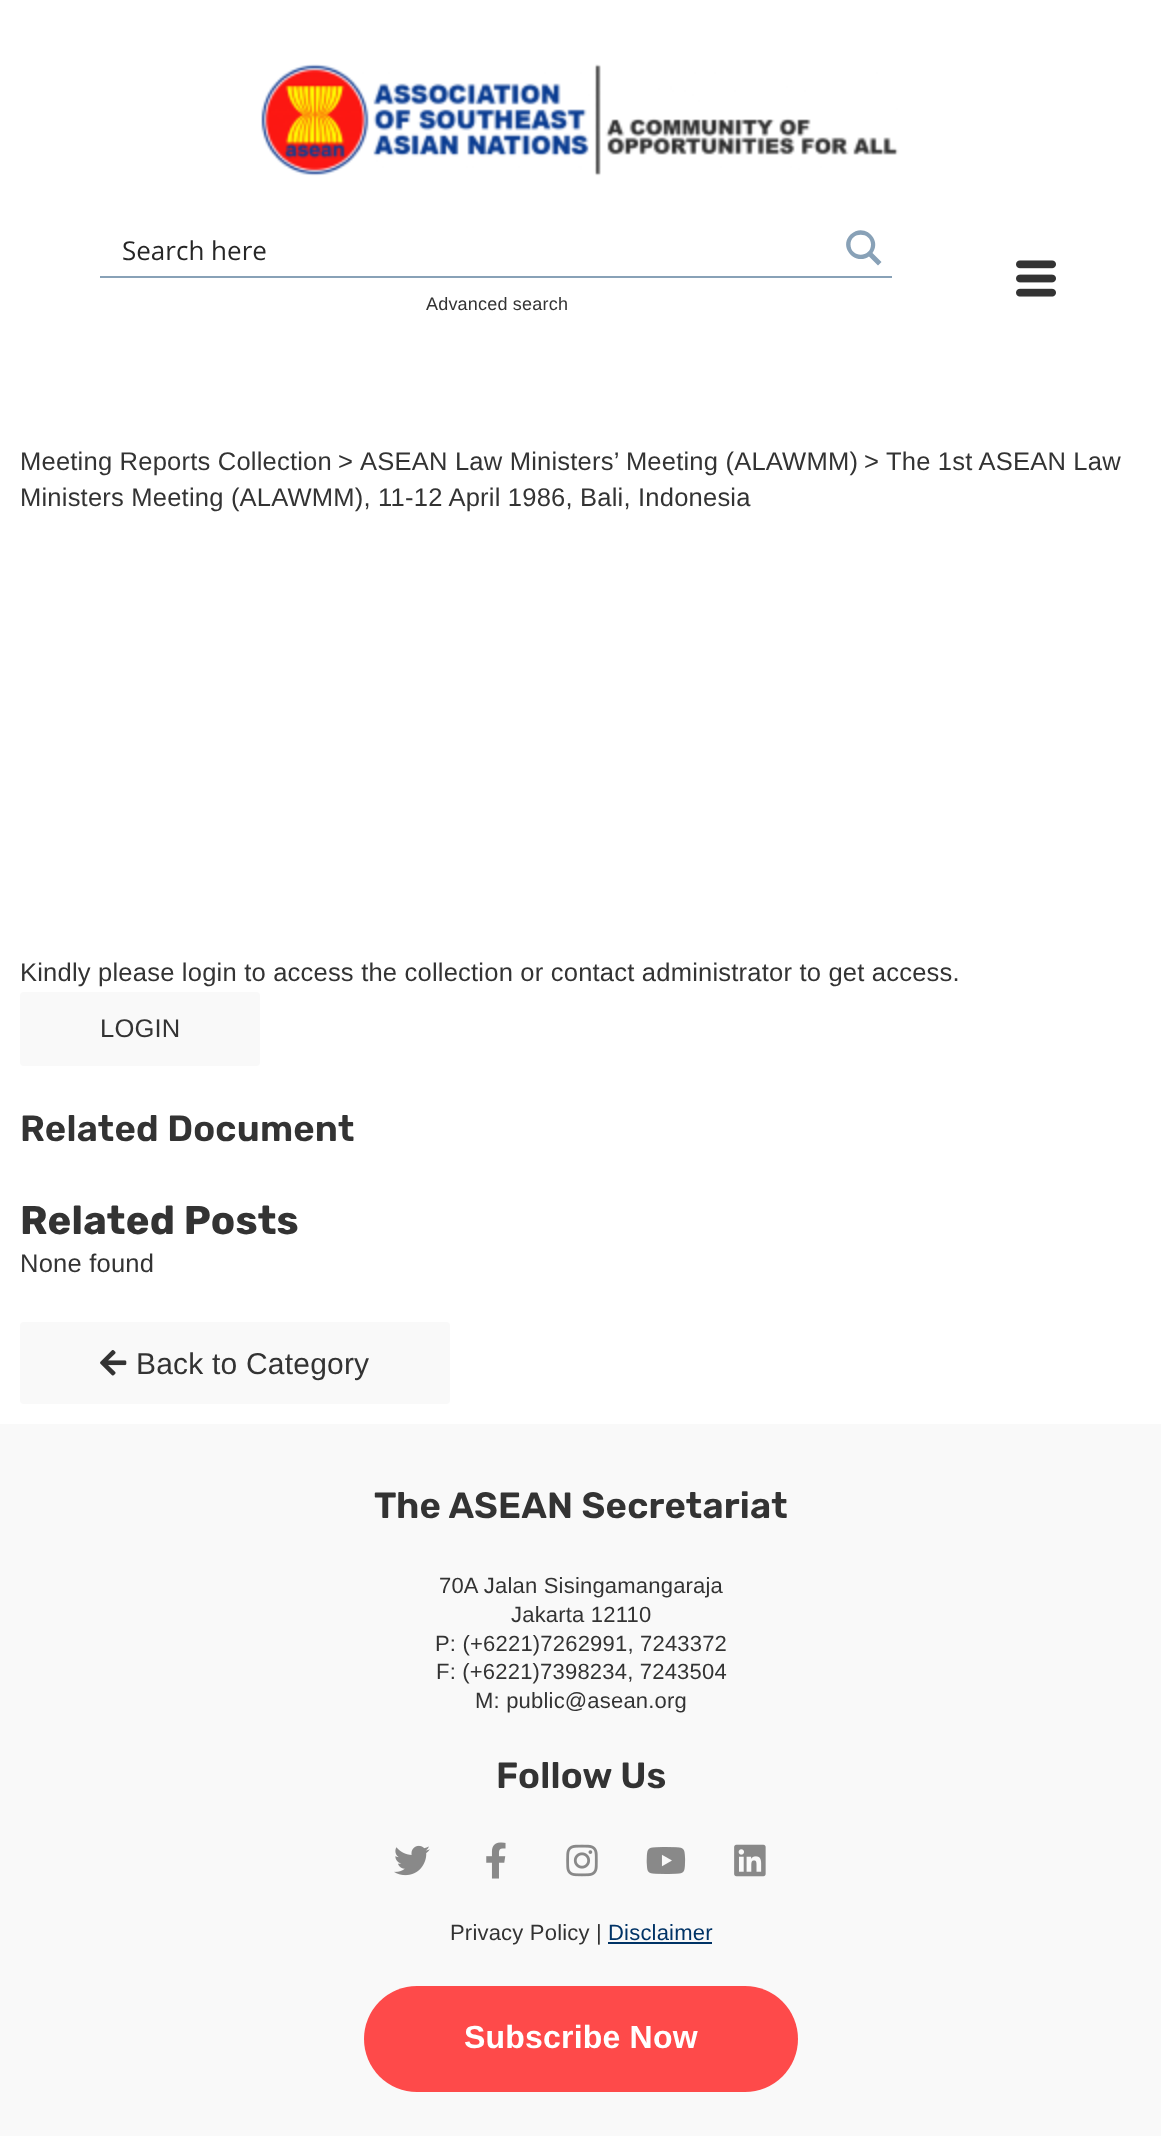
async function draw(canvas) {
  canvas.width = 1161
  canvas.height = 2136
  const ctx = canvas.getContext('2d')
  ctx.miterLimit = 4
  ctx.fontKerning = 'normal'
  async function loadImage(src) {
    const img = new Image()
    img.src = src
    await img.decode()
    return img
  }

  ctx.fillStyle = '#fff'
  ctx.fillRect(0, 0, 1161, 2136)
  ctx.drawImage(await loadImage('image0.png'), 261, 64, 638, 112)
  ctx.fillStyle = '#88a1b7'
  ctx.fillRect(100, 276, 792, 2)
  ctx.font = '26px Open Sans'
  ctx.fillStyle = '#262626'
  ctx.fillText('Search here', 122, 260)
  ctx.fillStyle = '#88a1b7'
  ctx.beginPath()
  ctx.moveTo(881.5, 262)
  ctx.lineTo(872.5, 253)
  ctx.bezierCurveTo(882.5, 239, 863.5, 222, 850.5, 234.5)
  ctx.bezierCurveTo(838, 247, 855, 266, 869, 256.5)
  ctx.lineTo(878, 265.5)
  ctx.closePath()
  ctx.moveTo(850.5, 244.5)
  ctx.bezierCurveTo(850.5, 231.5, 871, 231.5, 871, 244.5)
  ctx.bezierCurveTo(871, 258, 850.5, 258, 850.5, 244.5)
  ctx.closePath()
  ctx.fill()
  ctx.letterSpacing = '0.2px'
  ctx.font = '18px Liberation Sans'
  ctx.fillStyle = '#333'
  ctx.fillText('Advanced search', 426, 310)
  ctx.drawImage(await loadImage('image1.png'), 1016, 260, 40, 37)
  ctx.font = '25.55px Liberation Sans'
  ctx.fillText('Meeting Reports Collection', 20, 470)
  ctx.fillText('>', 338, 470)
  ctx.fillText('ASEAN Law Ministers’ Meeting (ALAWMM)', 360, 470)
  ctx.fillText('> The 1st ASEAN Law', 864, 470)
  ctx.fillText('Ministers Meeting (ALAWMM), 11-12 April 1986, Bali, Indonesia', 20, 506)
  ctx.fillText('Kindly please login to access the collection or contact administrator to get access.', 20, 981)
  ctx.fillStyle = '#f9f9f9'
  ctx.beginPath()
  ctx.roundRect(20, 992, 240, 74, 4)
  ctx.fill()
  ctx.fillStyle = '#333'
  ctx.fillText('LOGIN', 100, 1037)
  ctx.font = '600 36.5px Rubik'
  ctx.fillText('Related Document', 20, 1141)
  ctx.font = 'bold 40px Rubik'
  ctx.fillText('Related Posts', 20, 1234)
  ctx.font = '25.55px Liberation Sans'
  ctx.fillText('None found', 20, 1272)
  ctx.fillStyle = '#f9f9f9'
  ctx.beginPath()
  ctx.roundRect(20, 1322, 430, 82, 4)
  ctx.fill()
  ctx.drawImage(await loadImage('image2.png'), 100, 1350, 27, 26)
  ctx.font = '30px Liberation Sans'
  ctx.fillStyle = '#333'
  ctx.fillText('Back to Category', 136, 1374)
  ctx.fillStyle = '#f9f9f9'
  ctx.fillRect(0, 1424, 1161, 712)
  ctx.font = '600 36.5px Rubik'
  ctx.fillStyle = '#333'
  ctx.fillText('The ASEAN Secretariat', 374, 1518)
  ctx.font = '22px Liberation Sans'
  ctx.fillText('70A Jalan Sisingamangaraja', 439, 1593)
  ctx.fillText('Jakarta 12110', 511, 1622)
  ctx.fillText('P: (+6221)7262991, 7243372', 435, 1651)
  ctx.fillText('F: (+6221)7398234, 7243504', 436, 1679)
  ctx.fillText('M: public@asean.org', 475, 1708)
  ctx.font = '600 36.5px Rubik'
  ctx.fillText('Follow Us', 496, 1788)
  ctx.drawImage(await loadImage('image3.png'), 394, 1845, 36, 31)
  ctx.drawImage(await loadImage('image4.png'), 486, 1842, 20, 37)
  ctx.drawImage(await loadImage('image5.png'), 566, 1844, 32, 33)
  ctx.drawImage(await loadImage('image6.png'), 646, 1847, 40, 27)
  ctx.drawImage(await loadImage('image7.png'), 734, 1844, 32, 33)
  ctx.font = '22px Liberation Sans'
  ctx.fillText('Privacy Policy |', 450, 1940)
  ctx.fillStyle = '#036'
  ctx.fillText('Disclaimer', 608, 1940)
  ctx.fillRect(608, 1942, 104, 2)
  ctx.fillStyle = '#fe4a4a'
  ctx.beginPath()
  ctx.roundRect(364, 1986, 434, 106, 53)
  ctx.fill()
  ctx.font = 'bold 32px Liberation Sans'
  ctx.fillStyle = '#fff'
  ctx.fillText('Subscribe Now', 464, 2048)
}

draw(document.querySelector('canvas'))
